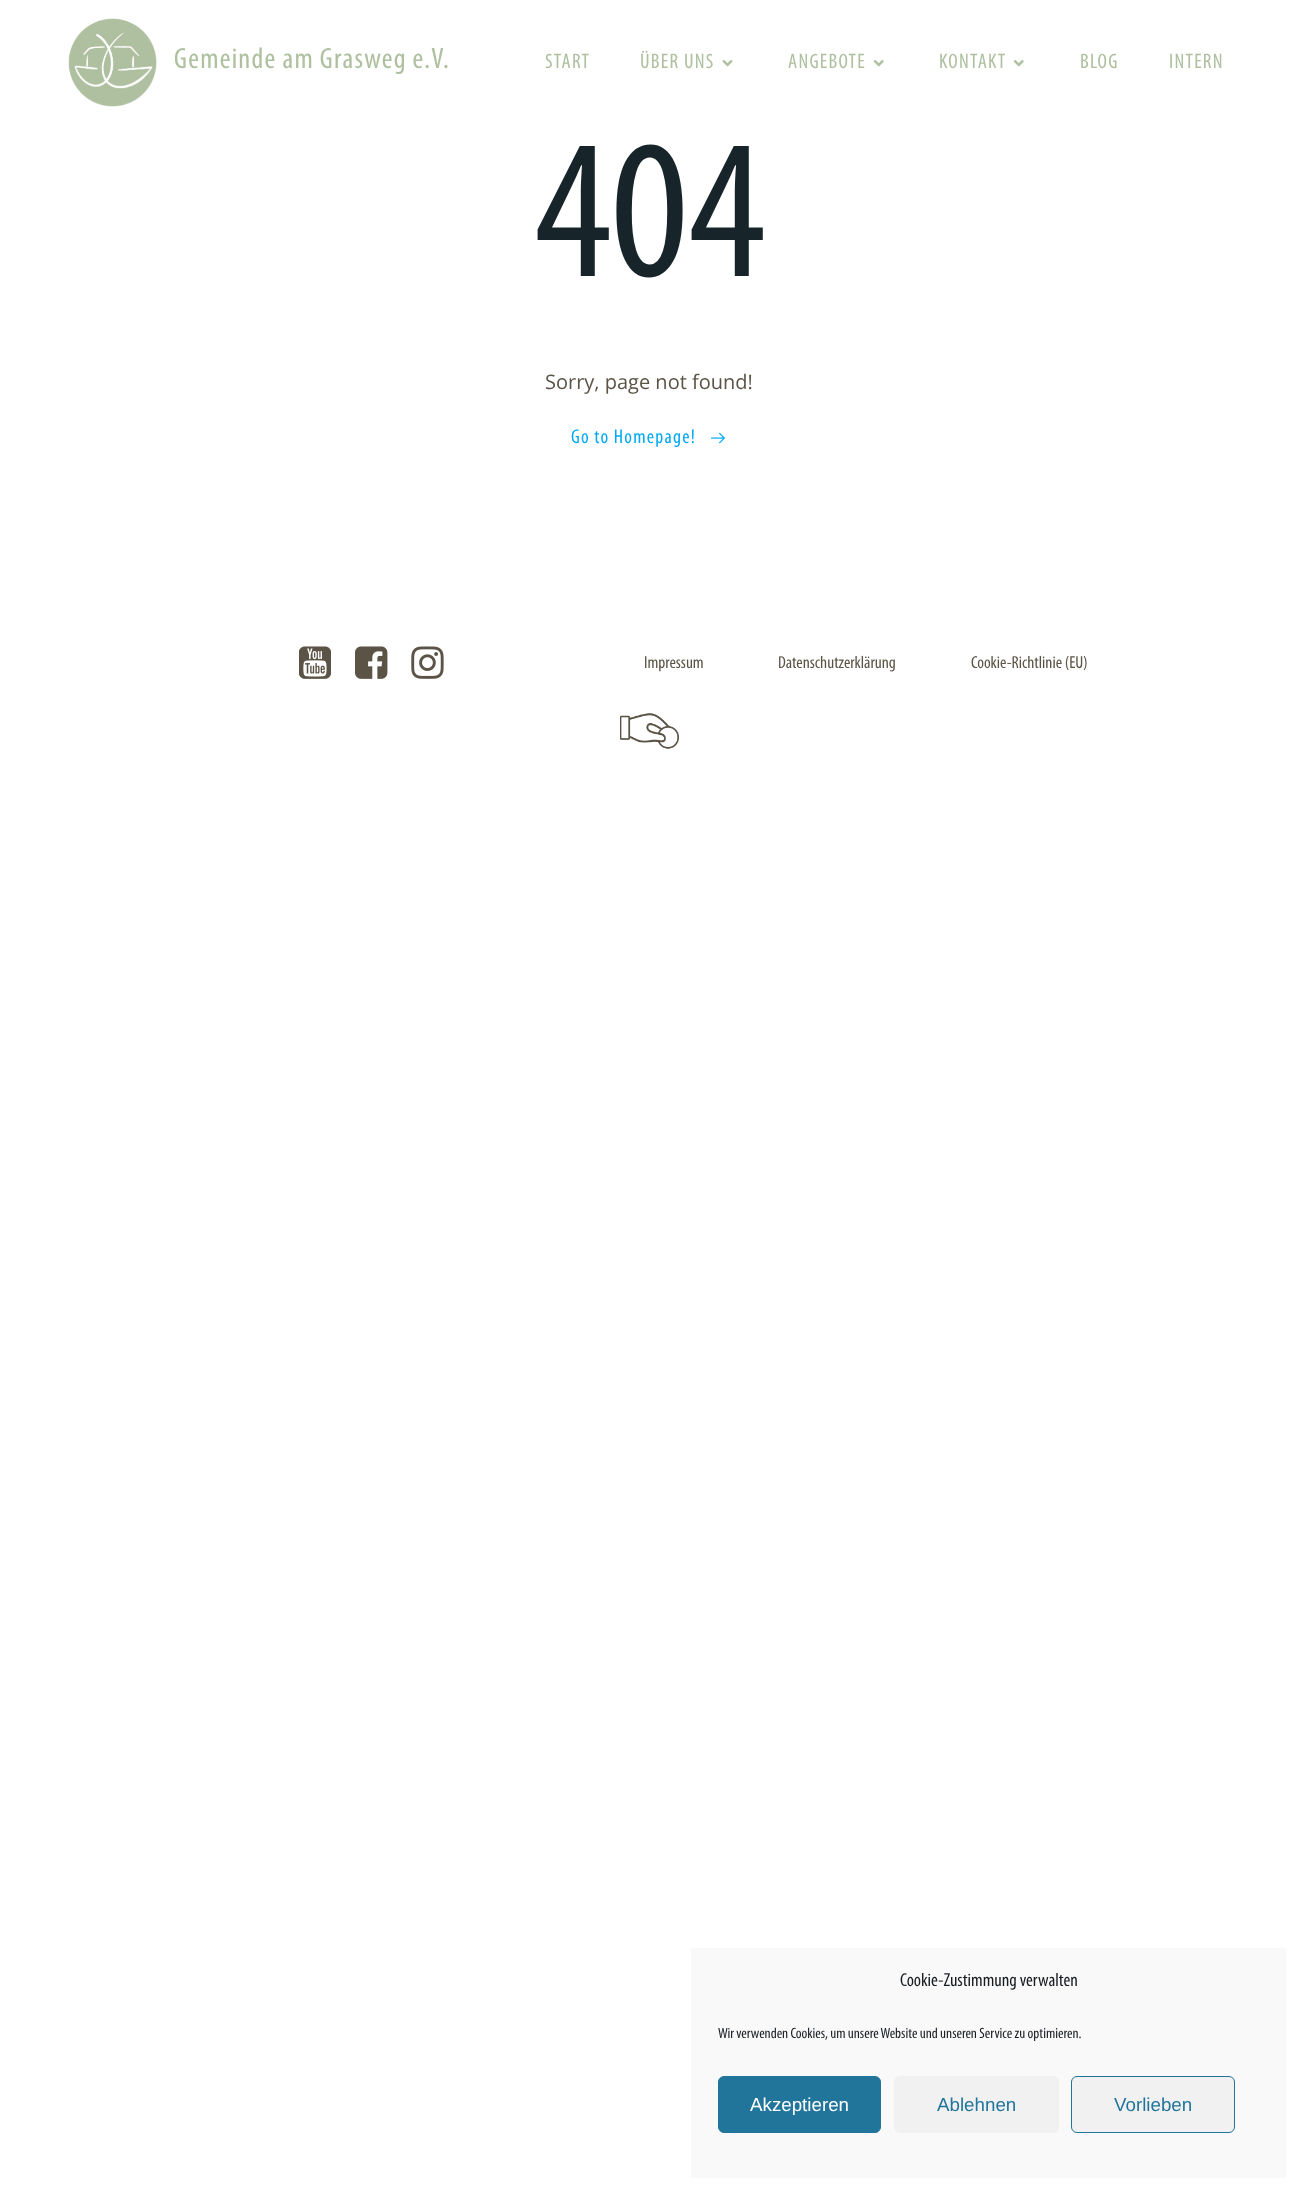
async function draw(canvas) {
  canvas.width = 1298
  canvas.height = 2190
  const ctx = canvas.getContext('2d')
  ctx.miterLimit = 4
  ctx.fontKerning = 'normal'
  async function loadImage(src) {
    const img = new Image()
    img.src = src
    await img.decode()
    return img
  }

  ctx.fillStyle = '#fff'
  ctx.fillRect(0, 0, 1298, 2190)
  ctx.drawImage(await loadImage('image0.png'), 68, 18, 89, 89)
  ctx.letterSpacing = '1.25px'
  ctx.font = '29.5px Myriad'
  ctx.fillStyle = '#aec09f'
  ctx.fillText('Gemeinde am Grasweg e.V.', 174, 68)
  ctx.font = '21px Myriad'
  ctx.fillText('START', 545, 68)
  ctx.fillText('ÜBER UNS', 640, 68)
  ctx.drawImage(await loadImage('image1.png'), 722, 60, 11, 7)
  ctx.fillText('ANGEBOTE', 788, 68)
  ctx.drawImage(await loadImage('image2.png'), 873, 60, 11, 7)
  ctx.fillText('KONTAKT', 939, 68)
  ctx.drawImage(await loadImage('image2.png'), 1013, 60, 11, 7)
  ctx.fillText('BLOG', 1080, 68)
  ctx.fillText('INTERN', 1169, 68)
  ctx.letterSpacing = '0px'
  ctx.font = '200px Myriad'
  ctx.fillStyle = '#17252a'
  ctx.fillText('404', 534, 276)
  ctx.font = '20px Open Sans'
  ctx.fillStyle = '#5b5446'
  ctx.fillText('Sorry, page not found!', 545, 389)
  ctx.letterSpacing = '1.25px'
  ctx.font = '20px Myriad'
  ctx.fillStyle = '#03a9f4'
  ctx.fillText('Go to Homepage!', 571, 443)
  ctx.drawImage(await loadImage('image3.png'), 711, 432, 14, 12)
  ctx.drawImage(await loadImage('image4.png'), 299, 646, 32, 33)
  ctx.drawImage(await loadImage('image5.png'), 355, 646, 33, 33)
  ctx.drawImage(await loadImage('image6.png'), 411, 646, 33, 33)
  ctx.letterSpacing = '0px'
  ctx.font = '17.5px Myriad'
  ctx.fillStyle = '#5b5446'
  ctx.fillText('Impressum', 644, 668)
  ctx.fillText('Datenschutzerklärung', 778, 668)
  ctx.fillText('Cookie-Richtlinie (EU)', 971, 668)
  ctx.drawImage(await loadImage('image7.png'), 620, 713, 59, 36)
  ctx.fillStyle = '#f9f9f9'
  ctx.fillRect(691, 1948, 595, 230)
  ctx.font = '18.75px Myriad'
  ctx.fillStyle = '#191e23'
  ctx.fillText('Cookie-Zustimmung verwalten', 900, 1986)
  ctx.font = '15px Myriad'
  ctx.fillText('Wir verwenden Cookies, um unsere Website und unseren Service zu optimieren.', 718, 2038)
  ctx.fillStyle = '#21759b'
  ctx.beginPath()
  ctx.roundRect(718.5, 2076.5, 162, 56, 5.5)
  ctx.fill()
  ctx.strokeStyle = '#21759b'
  ctx.stroke()
  ctx.font = '18.75px Liberation Sans'
  ctx.fillStyle = '#fff'
  ctx.fillText('Akzeptieren', 750, 2111)
  ctx.fillStyle = '#f1f1f1'
  ctx.beginPath()
  ctx.roundRect(894, 2076, 165, 57, 6)
  ctx.fill()
  ctx.fillStyle = '#21759b'
  ctx.fillText('Ablehnen', 937, 2111)
  ctx.fillStyle = '#f1f1f1'
  ctx.beginPath()
  ctx.roundRect(1071.5, 2076.5, 163, 56, 5.5)
  ctx.fill()
  ctx.stroke()
  ctx.fillStyle = '#21759b'
  ctx.fillText('Vorlieben', 1114, 2111)
}

draw(document.querySelector('canvas'))
